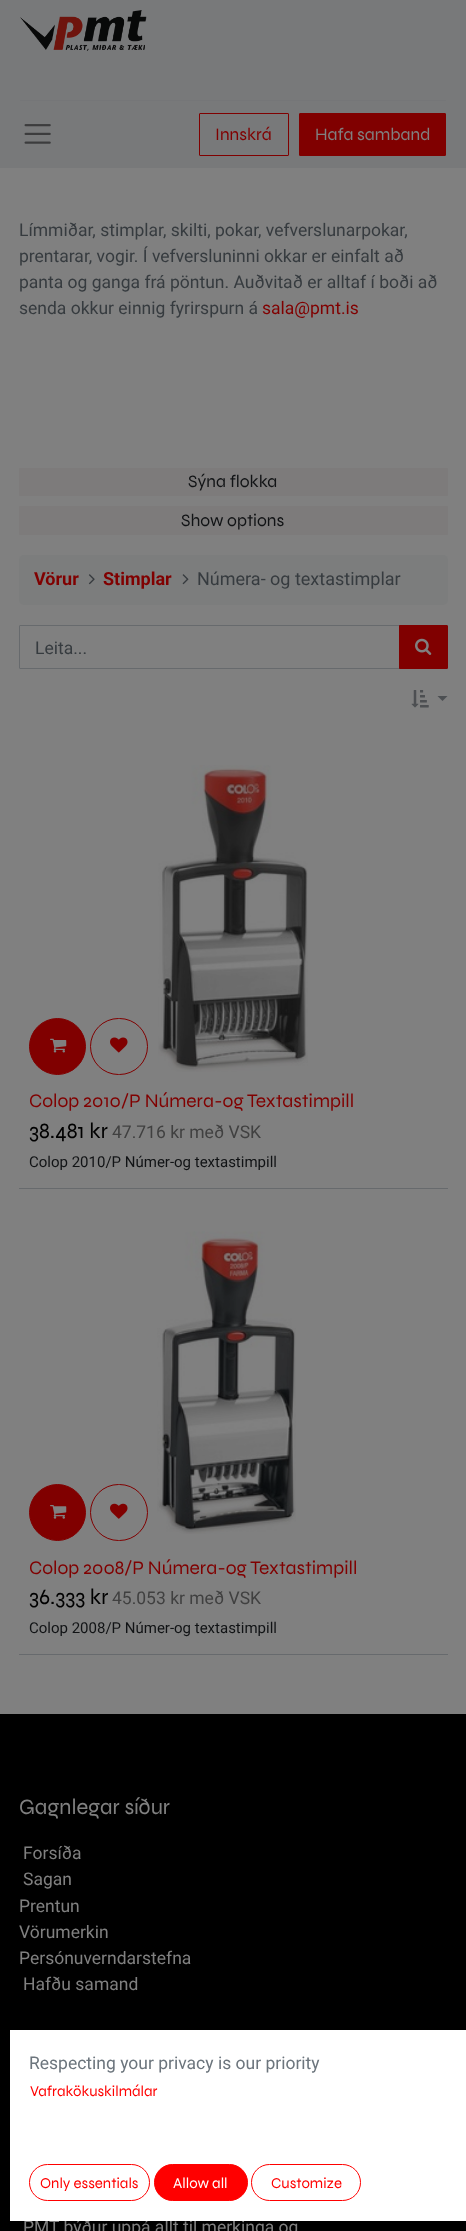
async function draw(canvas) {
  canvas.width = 466
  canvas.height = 2231
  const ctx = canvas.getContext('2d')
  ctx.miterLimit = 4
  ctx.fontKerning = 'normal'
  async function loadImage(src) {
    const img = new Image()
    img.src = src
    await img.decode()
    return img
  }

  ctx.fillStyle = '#808080'
  ctx.fillRect(0, 0, 466, 2231)
  ctx.fillStyle = '#78797a'
  ctx.fillRect(0, 0, 466, 168)
  ctx.drawImage(await loadImage('image0.png'), 20, 10, 127, 41)
  ctx.fillStyle = '#757678'
  ctx.fillRect(20, 100, 426, 1)
  ctx.drawImage(await loadImage('image1.png'), 24, 124, 27, 20)
  ctx.beginPath()
  ctx.roundRect(199.5, 113.5, 89, 42, 0.5)
  ctx.strokeStyle = '#800000'
  ctx.stroke()
  ctx.font = '17.5px Syne'
  ctx.fillStyle = '#800000'
  ctx.fillText('Innskrá', 215, 140)
  ctx.beginPath()
  ctx.roundRect(299.5, 113.5, 146, 42, 0.5)
  ctx.fill()
  ctx.stroke()
  ctx.fillStyle = '#808080'
  ctx.fillText('Hafa samband', 315, 140)
  ctx.font = '17.5px Roboto'
  ctx.fillStyle = '#363b3f'
  ctx.fillText('Límmiðar, stimplar, skilti, pokar, vefverslunarpokar,', 19, 236)
  ctx.fillText('prentarar, vogir. Í vefversluninni okkar er einfalt að', 19, 262)
  ctx.fillText('panta og ganga frá pöntun. Auðvitað er alltaf í boði að', 19, 288)
  ctx.fillText('senda okkur einnig fyrirspurn á', 19, 314)
  ctx.fillStyle = '#800000'
  ctx.fillText('sala@pmt.is', 262, 314)
  ctx.fillStyle = '#7d7b7b'
  ctx.beginPath()
  ctx.roundRect(19, 468, 429, 28, 1)
  ctx.fill()
  ctx.font = '17.5px Syne'
  ctx.fillStyle = '#111315'
  ctx.fillText('Sýna flokka', 188, 487)
  ctx.fillStyle = '#7d7b7b'
  ctx.beginPath()
  ctx.roundRect(19, 506, 429, 29, 1)
  ctx.fill()
  ctx.fillStyle = '#111315'
  ctx.fillText('Show options', 181, 526)
  ctx.fillStyle = '#7c7d7d'
  ctx.beginPath()
  ctx.roundRect(19, 555, 429, 50, 5)
  ctx.fill()
  ctx.font = 'bold 18px Roboto'
  ctx.fillStyle = '#800000'
  ctx.fillText('Vörur', 34, 585)
  ctx.drawImage(await loadImage('image2.png'), 88, 574, 7, 11)
  ctx.fillText('Stimplar', 103, 585)
  ctx.drawImage(await loadImage('image3.png'), 182, 574, 7, 11)
  ctx.font = '18px Roboto'
  ctx.fillStyle = '#363b3f'
  ctx.fillText('Númera- og textastimplar', 197, 585)
  ctx.beginPath()
  ctx.roundRect(19.5, 625.5, 380, 43, [0.5, 0, 0, 0.5])
  ctx.strokeStyle = '#676a6d'
  ctx.stroke()
  ctx.font = '17.5px Roboto'
  ctx.fillText('Leita...', 35, 654)
  ctx.fillStyle = '#800000'
  ctx.beginPath()
  ctx.roundRect(399.5, 625.5, 48, 43, [0, 0.5, 0.5, 0])
  ctx.fill()
  ctx.strokeStyle = '#800000'
  ctx.stroke()
  ctx.drawImage(await loadImage('image4.png'), 415, 638, 17, 17)
  ctx.drawImage(await loadImage('image5.png'), 411, 690, 18, 18)
  ctx.fillStyle = '#4c4f52'
  ctx.beginPath()
  ctx.moveTo(437.5, 696)
  ctx.lineTo(447.5, 696)
  ctx.lineTo(442.5, 701)
  ctx.closePath()
  ctx.fill()
  ctx.fillStyle = '#676a6d'
  ctx.fillRect(19, 1188, 429, 1)
  ctx.drawImage(await loadImage('image6.png'), 158, 765, 150, 307)
  ctx.fillStyle = '#800000'
  ctx.beginPath()
  ctx.arc(57.5, 1046.5, 28, 0, 2 * Math.PI)
  ctx.fill()
  ctx.stroke()
  ctx.drawImage(await loadImage('image7.png'), 50, 1038, 17, 15)
  ctx.beginPath()
  ctx.roundRect(90.5, 1018.5, 57, 56, 28)
  ctx.stroke()
  ctx.drawImage(await loadImage('image8.png'), 110, 1037, 18, 16)
  ctx.font = '19.25px Syne'
  ctx.fillText('Colop 2010/P Númera-og Textastimpill', 29, 1107)
  ctx.font = '22px Syne'
  ctx.fillStyle = '#000'
  ctx.fillText('38.481 kr', 29, 1138)
  ctx.font = '17.5px Roboto'
  ctx.fillStyle = '#404040'
  ctx.fillText('47.716 kr með VSK', 112, 1138)
  ctx.font = '15px Roboto'
  ctx.fillStyle = '#111315'
  ctx.fillText('Colop 2010/P Númer-og textastimpill', 29, 1167)
  ctx.fillStyle = '#676a6d'
  ctx.fillRect(19, 1654, 429, 1)
  ctx.drawImage(await loadImage('image9.png'), 157, 1231, 139, 303)
  ctx.fillStyle = '#800000'
  ctx.beginPath()
  ctx.arc(57.5, 1512.5, 28, 0, 2 * Math.PI)
  ctx.fill()
  ctx.stroke()
  ctx.drawImage(await loadImage('image10.png'), 50, 1505, 17, 14)
  ctx.beginPath()
  ctx.roundRect(90.5, 1484.5, 57, 56, 28)
  ctx.stroke()
  ctx.drawImage(await loadImage('image11.png'), 110, 1503, 18, 16)
  ctx.font = '19.25px Syne'
  ctx.fillText('Colop 2008/P Númera-og Textastimpill', 29, 1574)
  ctx.font = '22px Syne'
  ctx.fillStyle = '#000'
  ctx.fillText('36.333 kr', 29, 1604)
  ctx.font = '17.5px Roboto'
  ctx.fillStyle = '#404040'
  ctx.fillText('45.053 kr með VSK', 112, 1604)
  ctx.font = '15px Roboto'
  ctx.fillStyle = '#111315'
  ctx.fillText('Colop 2008/P Númer-og textastimpill', 29, 1633)
  ctx.fillStyle = '#000'
  ctx.fillRect(0, 1714, 466, 517)
  ctx.font = '22px Syne'
  ctx.fillStyle = '#808080'
  ctx.fillText('Gagnlegar síður', 19, 1814)
  ctx.font = '17.5px Roboto'
  ctx.fillText('Forsíða', 23, 1859)
  ctx.fillText('Sagan', 23, 1885)
  ctx.fillText('Prentun', 19, 1912)
  ctx.fillText('Vörumerkin', 19, 1938)
  ctx.fillText('Persónuverndarstefna', 19, 1964)
  ctx.fillText('Hafðu samand', 23, 1990)
  ctx.fillText('PMT býður uppá allt til merkinga og', 23, 2233)
  ctx.fillStyle = '#fff'
  ctx.fillRect(10, 2030, 456, 191)
  ctx.fillStyle = '#6c757d'
  ctx.fillText('Respecting your privacy is our priority', 29, 2069)
  ctx.font = '15px Syne'
  ctx.fillStyle = '#f00'
  ctx.fillText('Vafrakökuskilmálar', 30, 2096)
  ctx.beginPath()
  ctx.roundRect(29.5, 2164.5, 120, 36, 18)
  ctx.strokeStyle = '#f00'
  ctx.stroke()
  ctx.fillText('Only essentials', 40, 2188)
  ctx.beginPath()
  ctx.roundRect(154.5, 2164.5, 93, 36, 18)
  ctx.fill()
  ctx.stroke()
  ctx.fillStyle = '#fff'
  ctx.fillText('Allow all', 173, 2188)
  ctx.beginPath()
  ctx.roundRect(251.5, 2164.5, 109, 36, 18)
  ctx.stroke()
  ctx.fillStyle = '#f00'
  ctx.fillText('Customize', 271, 2188)
}

draw(document.querySelector('canvas'))
